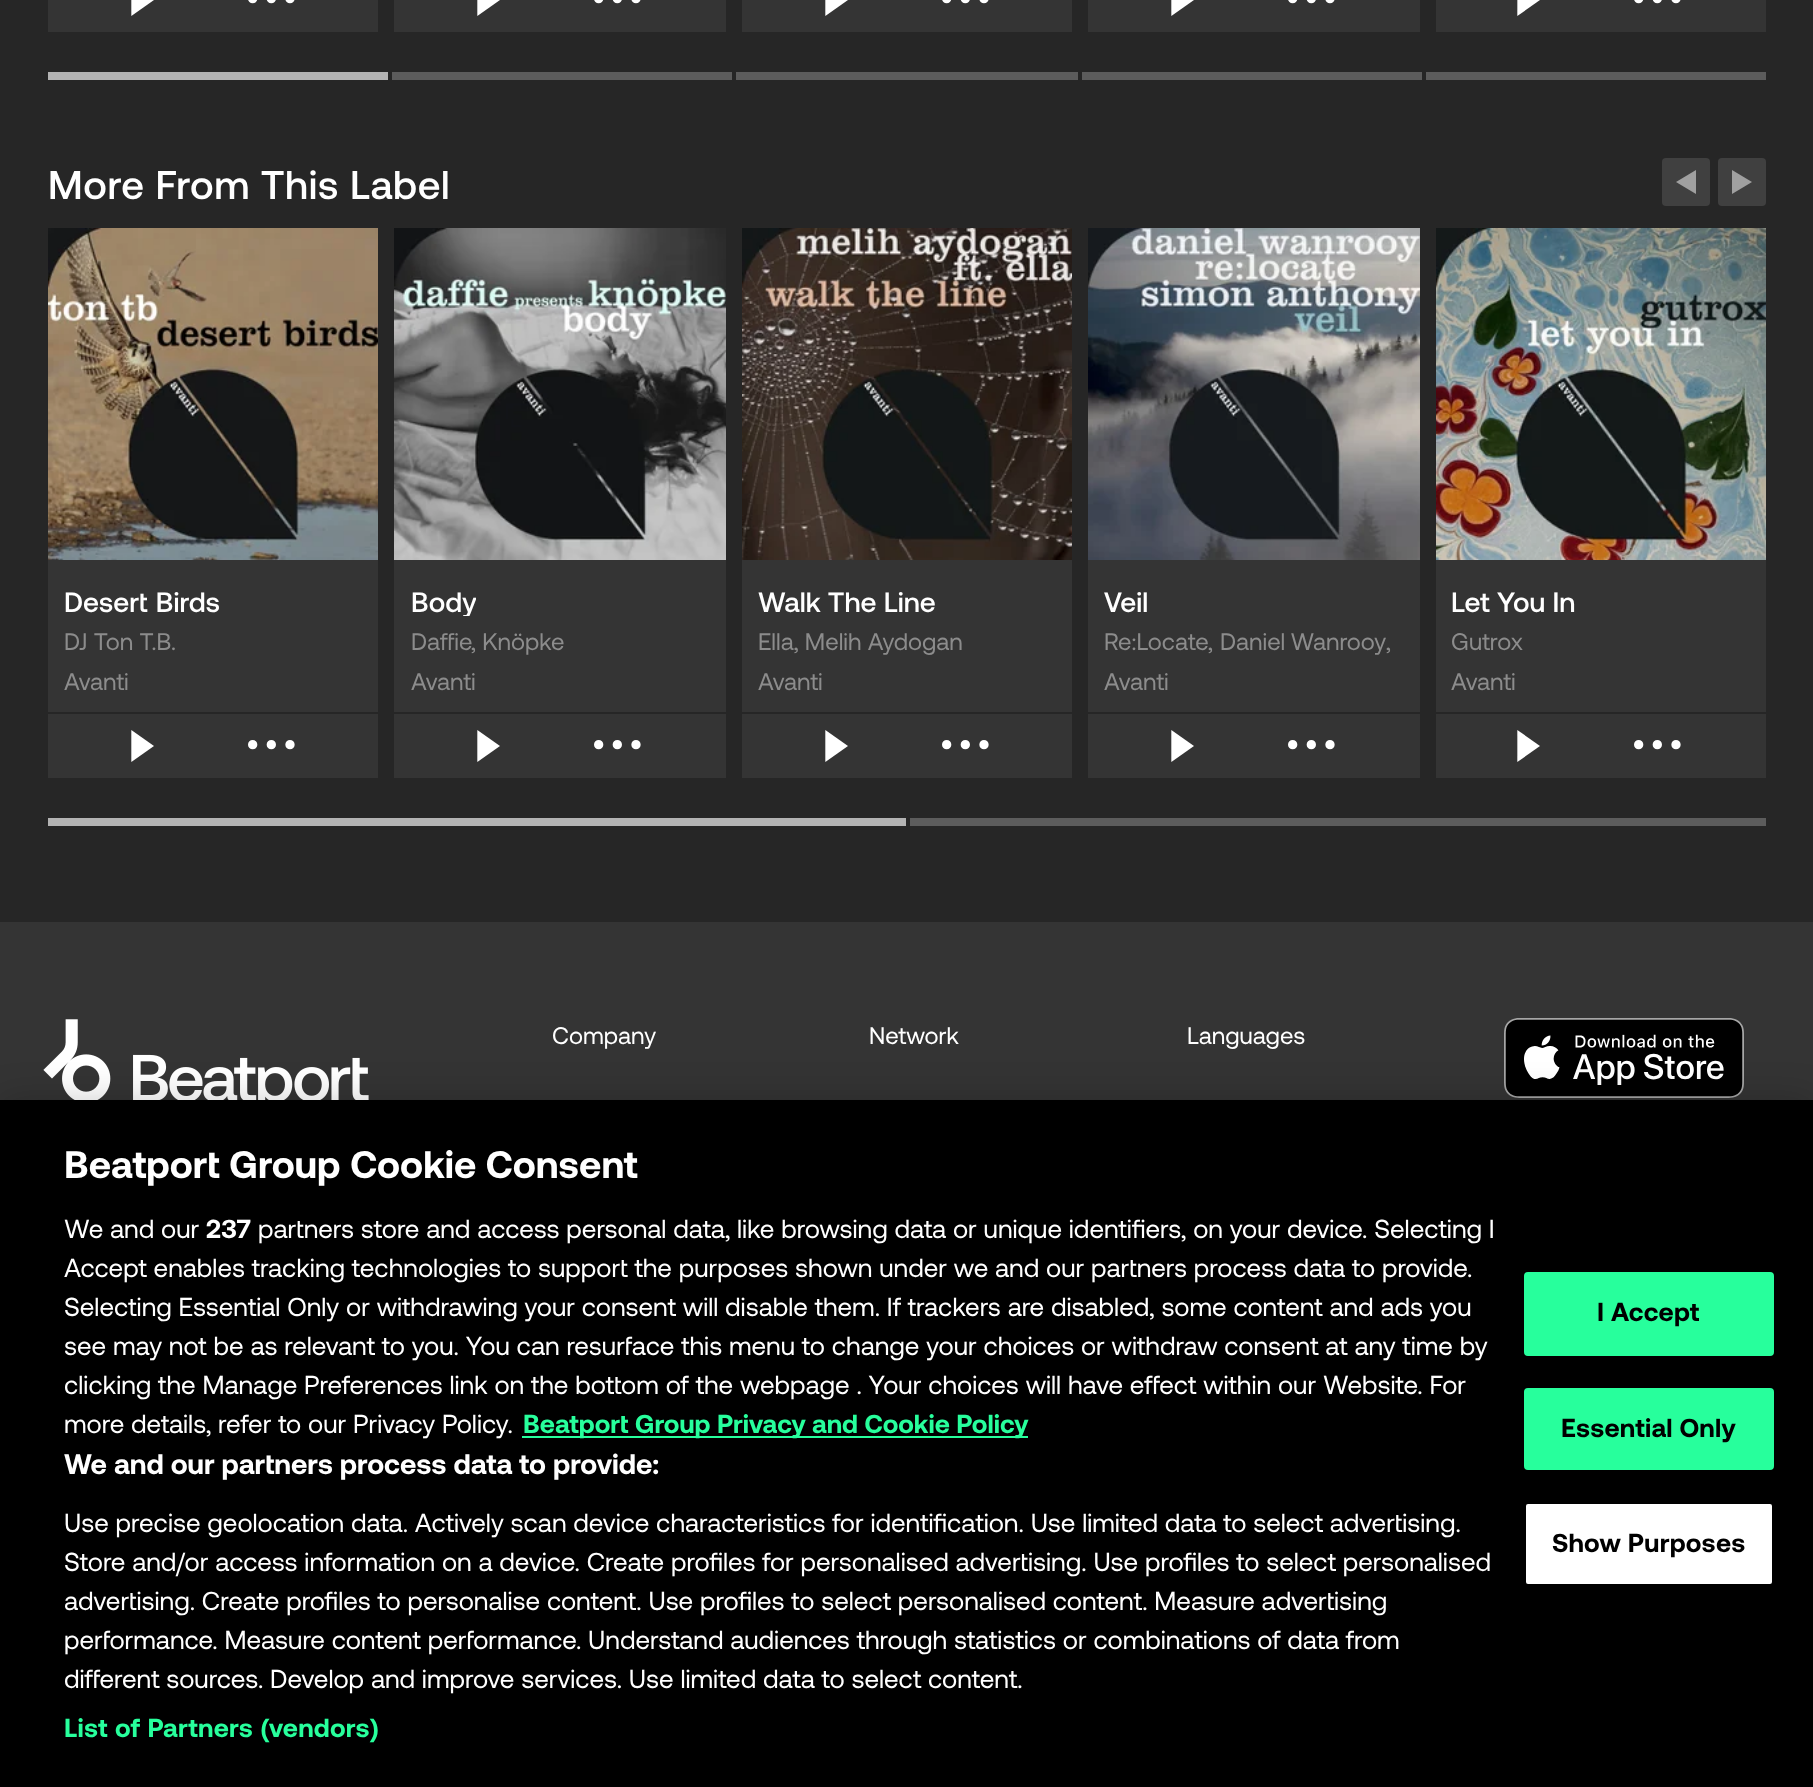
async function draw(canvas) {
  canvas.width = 1813
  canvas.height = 1787
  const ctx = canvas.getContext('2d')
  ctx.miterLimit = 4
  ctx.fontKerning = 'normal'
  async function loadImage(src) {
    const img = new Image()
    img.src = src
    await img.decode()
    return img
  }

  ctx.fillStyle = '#262626'
  ctx.fillRect(0, 0, 1813, 1787)
  ctx.fillStyle = '#343434'
  ctx.fillRect(48, 0, 330, 32)
  ctx.drawImage(await loadImage('image0.png'), 131, 0, 23, 16)
  ctx.drawImage(await loadImage('image1.png'), 248, 0, 47, 4)
  ctx.fillRect(394, 0, 332, 32)
  ctx.drawImage(await loadImage('image0.png'), 477, 0, 23, 16)
  ctx.drawImage(await loadImage('image2.png'), 594, 0, 47, 4)
  ctx.fillRect(742, 0, 330, 32)
  ctx.drawImage(await loadImage('image0.png'), 825, 0, 23, 16)
  ctx.drawImage(await loadImage('image2.png'), 942, 0, 47, 4)
  ctx.fillRect(1088, 0, 332, 32)
  ctx.drawImage(await loadImage('image0.png'), 1171, 0, 23, 16)
  ctx.drawImage(await loadImage('image2.png'), 1288, 0, 47, 4)
  ctx.fillRect(1436, 0, 330, 32)
  ctx.drawImage(await loadImage('image3.png'), 1517, 0, 23, 16)
  ctx.drawImage(await loadImage('image2.png'), 1634, 0, 47, 4)
  ctx.fillStyle = '#b3b3b3'
  ctx.fillRect(48, 72, 340, 8)
  ctx.fillStyle = '#5c5c5c'
  ctx.fillRect(392, 72, 340, 8)
  ctx.fillRect(736, 72, 342, 8)
  ctx.fillRect(1082, 72, 340, 8)
  ctx.fillRect(1426, 72, 340, 8)
  ctx.letterSpacing = '0.6px'
  ctx.font = '500 40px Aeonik'
  ctx.fillStyle = '#fff'
  ctx.fillText('More From This Label', 48, 199)
  ctx.fillStyle = '#404040'
  ctx.beginPath()
  ctx.roundRect(1662, 158, 48, 48, 4)
  ctx.fill()
  ctx.drawImage(await loadImage('image4.png'), 1676, 170, 20, 24)
  ctx.beginPath()
  ctx.roundRect(1718, 158, 48, 48, 4)
  ctx.fill()
  ctx.drawImage(await loadImage('image5.png'), 1732, 170, 20, 24)
  ctx.fillStyle = '#343434'
  ctx.fillRect(48, 560, 330, 218)
  ctx.drawImage(await loadImage('image6.png'), 48, 228, 330, 332)
  ctx.letterSpacing = '0px'
  ctx.wordSpacing = '1px'
  ctx.font = '500 28px Aeonik'
  ctx.fillStyle = '#fff'
  ctx.fillText('Desert Birds', 64, 612)
  ctx.wordSpacing = '0px'
  ctx.font = '24px Aeonik'
  ctx.fillStyle = '#8c8c8c'
  ctx.fillText('DJ Ton T.B.', 64, 650)
  ctx.fillText('Avanti', 64, 690)
  ctx.fillStyle = '#262626'
  ctx.fillRect(48, 712, 330, 2)
  ctx.drawImage(await loadImage('image7.png'), 131, 730, 23, 32)
  ctx.drawImage(await loadImage('image8.png'), 248, 740, 47, 10)
  ctx.fillStyle = '#343434'
  ctx.fillRect(394, 560, 332, 218)
  ctx.drawImage(await loadImage('image9.png'), 394, 228, 332, 332)
  ctx.save()
  ctx.beginPath()
  ctx.rect(410, 576, 66, 40)
  ctx.clip()
  ctx.font = '500 28px Aeonik'
  ctx.fillStyle = '#fff'
  ctx.fillText('Body', 411, 612)
  ctx.restore()
  ctx.fillStyle = '#8c8c8c'
  ctx.fillText('Daffie', 411, 650)
  ctx.fillText(', Knöpke', 471, 650)
  ctx.fillText('Avanti', 411, 690)
  ctx.fillStyle = '#262626'
  ctx.fillRect(394, 712, 332, 2)
  ctx.drawImage(await loadImage('image7.png'), 477, 730, 23, 32)
  ctx.drawImage(await loadImage('image10.png'), 594, 740, 47, 10)
  ctx.fillStyle = '#343434'
  ctx.fillRect(742, 560, 330, 218)
  ctx.drawImage(await loadImage('image11.png'), 742, 228, 330, 332)
  ctx.font = '500 28px Aeonik'
  ctx.fillStyle = '#fff'
  ctx.fillText('Walk The Line', 758, 612)
  ctx.font = '24px Aeonik'
  ctx.fillStyle = '#8c8c8c'
  ctx.fillText('Ella, Melih Aydogan', 758, 650)
  ctx.fillText('Avanti', 758, 690)
  ctx.fillStyle = '#262626'
  ctx.fillRect(742, 712, 330, 2)
  ctx.drawImage(await loadImage('image7.png'), 825, 730, 23, 32)
  ctx.drawImage(await loadImage('image10.png'), 942, 740, 47, 10)
  ctx.fillStyle = '#343434'
  ctx.fillRect(1088, 560, 332, 218)
  ctx.drawImage(await loadImage('image12.png'), 1088, 228, 332, 332)
  ctx.font = '500 28px Aeonik'
  ctx.fillStyle = '#fff'
  ctx.fillText('Veil', 1104, 612)
  ctx.font = '24px Aeonik'
  ctx.fillStyle = '#8c8c8c'
  ctx.fillText('Re:Locate', 1104, 650)
  ctx.fillText(',', 1208, 650)
  ctx.wordSpacing = '-1px'
  ctx.fillText('Daniel Wanrooy', 1220, 650)
  ctx.wordSpacing = '0px'
  ctx.fillText(',', 1386, 650)
  ctx.fillText('Avanti', 1104, 690)
  ctx.fillStyle = '#262626'
  ctx.fillRect(1088, 712, 332, 2)
  ctx.drawImage(await loadImage('image7.png'), 1171, 730, 23, 32)
  ctx.drawImage(await loadImage('image10.png'), 1288, 740, 47, 10)
  ctx.fillStyle = '#343434'
  ctx.fillRect(1436, 560, 330, 218)
  ctx.drawImage(await loadImage('image13.png'), 1436, 228, 330, 332)
  ctx.font = '500 28px Aeonik'
  ctx.fillStyle = '#fff'
  ctx.fillText('Let You In', 1451, 612)
  ctx.font = '24px Aeonik'
  ctx.fillStyle = '#8c8c8c'
  ctx.fillText('Gutrox', 1451, 650)
  ctx.fillText('Avanti', 1451, 690)
  ctx.fillStyle = '#262626'
  ctx.fillRect(1436, 712, 330, 2)
  ctx.drawImage(await loadImage('image14.png'), 1517, 730, 23, 32)
  ctx.drawImage(await loadImage('image10.png'), 1634, 740, 47, 10)
  ctx.fillStyle = '#b3b3b3'
  ctx.fillRect(48, 818, 858, 8)
  ctx.fillStyle = '#5c5c5c'
  ctx.fillRect(910, 818, 856, 8)
  ctx.fillStyle = '#343434'
  ctx.fillRect(0, 922, 1813, 178)
  ctx.drawImage(await loadImage('image15.png'), 43, 1019, 326, 81)
  ctx.fillStyle = '#fff'
  ctx.fillText('Company', 552, 1044)
  ctx.fillText('Network', 869, 1044)
  ctx.fillText('Languages', 1187, 1044)
  ctx.drawImage(await loadImage('image16.png'), 1504, 1018, 240, 80)
  ctx.fillStyle = '#00000033'
  ctx.filter = 'blur(18px)'
  ctx.beginPath()
  ctx.rect(0, 1100, 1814, 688)
  ctx.fill()
  ctx.filter = 'none'
  ctx.fillStyle = '#000'
  ctx.fillRect(0, 1100, 1813, 687)
  ctx.font = 'bold 38.4px Aeonik'
  ctx.fillStyle = '#fff'
  ctx.fillText('Beatport Group Cookie Consent', 64, 1178)
  ctx.font = '26.02px Aeonik'
  ctx.fillText('We and our', 64, 1238)
  ctx.font = 'bold 26.02px Aeonik'
  ctx.fillText('237', 206, 1238)
  ctx.font = '26.02px Aeonik'
  ctx.fillText('partners store and access personal data, like browsing data or unique identifiers, on your device. Selecting I', 258, 1238)
  ctx.fillText('Accept enables tracking technologies to support the purposes shown under we and our partners process data to provide.', 64, 1277)
  ctx.fillText('Selecting Essential Only or withdrawing your consent will disable them. If trackers are disabled, some content and ads you', 64, 1316)
  ctx.fillText('see may not be as relevant to you. You can resurface this menu to change your choices or withdraw consent at any time by', 64, 1355)
  ctx.fillText('clicking the Manage Preferences link on the bottom of the webpage . Your choices will have effect within our Website. For', 64, 1394)
  ctx.fillText('more details, refer to our Privacy Policy.', 64, 1433)
  ctx.fillStyle = '#27ff9c'
  ctx.fillRect(522, 1436, 506, 2)
  ctx.font = 'bold 26.02px Aeonik'
  ctx.fillText('Beatport Group Privacy and Cookie Policy', 523, 1433)
  ctx.font = 'bold 28.2px Aeonik'
  ctx.fillStyle = '#fff'
  ctx.fillText('We and our partners process data to provide:', 64, 1474)
  ctx.font = '26.02px Aeonik'
  ctx.fillText('Use precise geolocation data. Actively scan device characteristics for identification. Use limited data to select advertising.', 64, 1532)
  ctx.fillText('Store and/or access information on a device. Create profiles for personalised advertising. Use profiles to select personalised', 64, 1571)
  ctx.fillText('advertising. Create profiles to personalise content. Use profiles to select personalised content. Measure advertising', 64, 1610)
  ctx.fillText('performance. Measure content performance. Understand audiences through statistics or combinations of data from', 64, 1649)
  ctx.fillText('different sources. Develop and improve services. Use limited data to select content.', 64, 1688)
  ctx.letterSpacing = '0.25px'
  ctx.wordSpacing = '0.5px'
  ctx.font = 'bold 26.02px Aeonik'
  ctx.fillStyle = '#27ff9c'
  ctx.fillText('List of Partners (vendors)', 64, 1737)
  ctx.beginPath()
  ctx.roundRect(1525, 1273, 248, 82, 3)
  ctx.fill()
  ctx.strokeStyle = '#27ff9c'
  ctx.lineWidth = 2
  ctx.stroke()
  ctx.wordSpacing = '0px'
  ctx.fillStyle = '#000'
  ctx.fillText('I Accept', 1597, 1321)
  ctx.fillStyle = '#27ff9c'
  ctx.beginPath()
  ctx.roundRect(1525, 1389, 248, 80, 3)
  ctx.fill()
  ctx.stroke()
  ctx.fillStyle = '#000'
  ctx.fillText('Essential Only', 1561, 1437)
  ctx.fillStyle = '#fff'
  ctx.beginPath()
  ctx.roundRect(1525, 1503, 248, 82, 3)
  ctx.fill()
  ctx.strokeStyle = '#000'
  ctx.stroke()
  ctx.fillStyle = '#000'
  ctx.fillText('Show Purposes', 1552, 1552)
}

draw(document.querySelector('canvas'))
